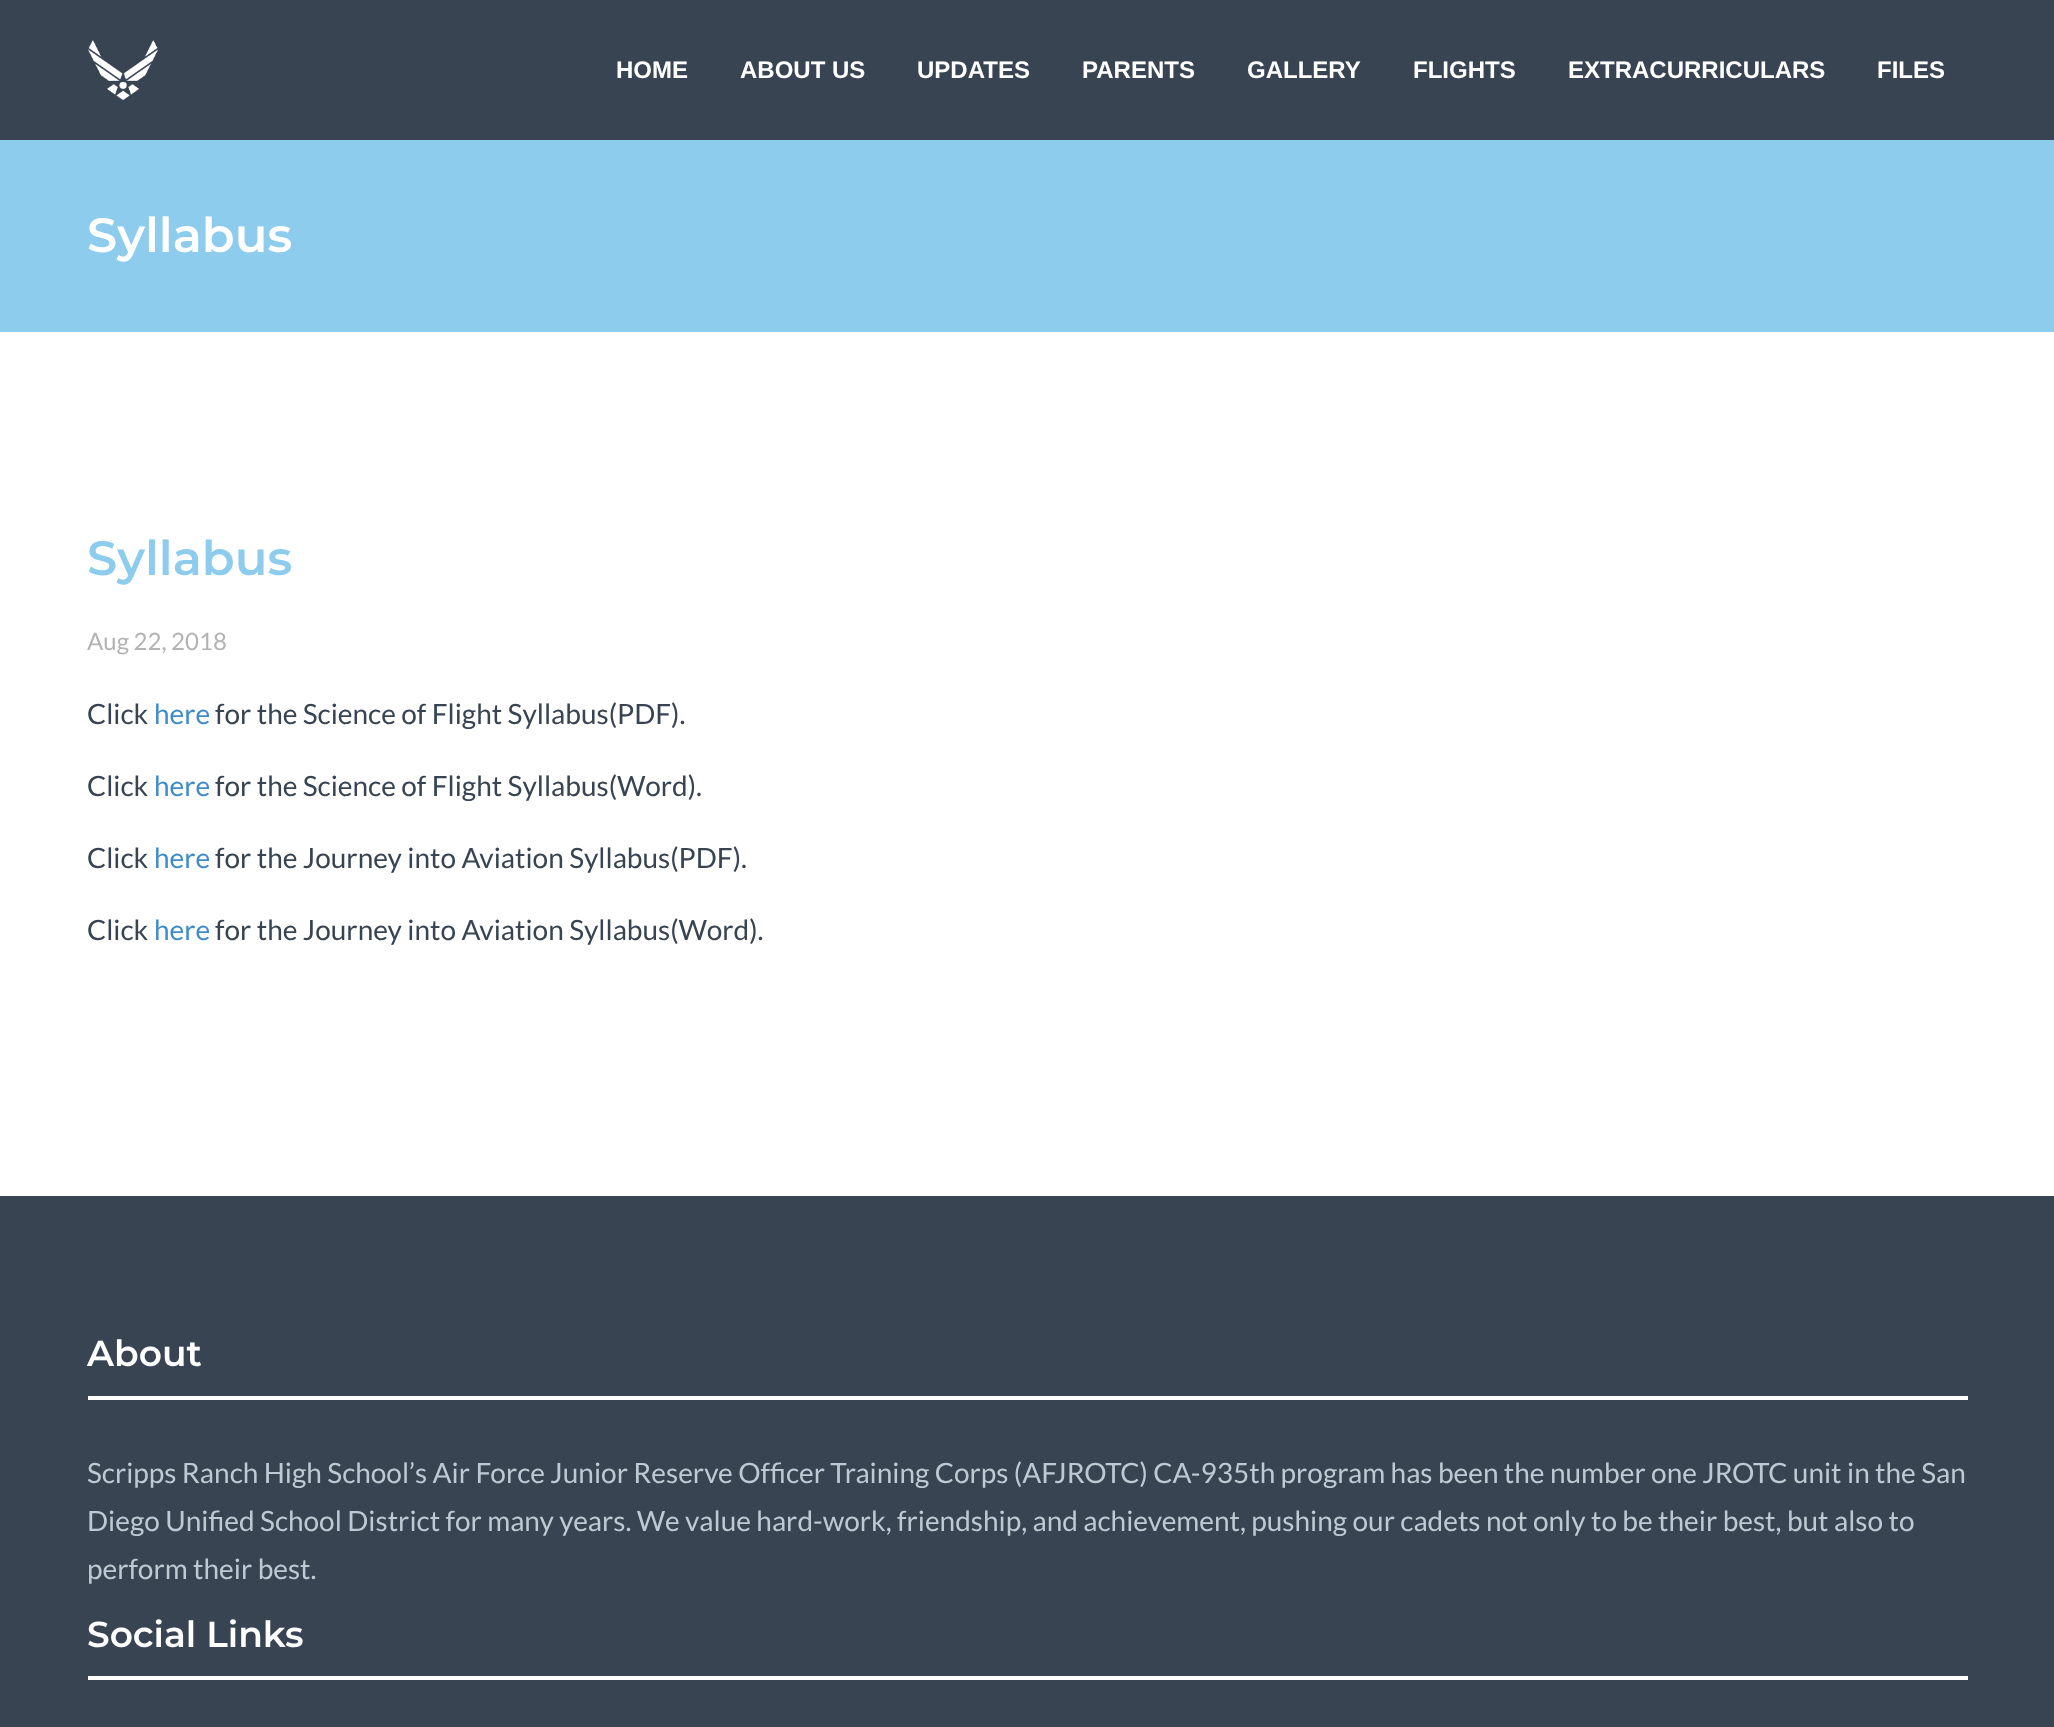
async function draw(canvas) {
  canvas.width = 2054
  canvas.height = 1727
  const ctx = canvas.getContext('2d')
  ctx.miterLimit = 4
  ctx.fontKerning = 'normal'
  async function loadImage(src) {
    const img = new Image()
    img.src = src
    await img.decode()
    return img
  }

  ctx.fillStyle = '#fff'
  ctx.fillRect(0, 0, 2054, 1727)
  ctx.fillStyle = '#384452'
  ctx.fillRect(0, 0, 2054, 140)
  ctx.drawImage(await loadImage('image0.png'), 88, 40, 70, 60)
  ctx.font = 'bold 24px Liberation Sans'
  ctx.fillStyle = '#fff'
  ctx.fillText('HOME', 616, 78)
  ctx.fillText('ABOUT US', 740, 78)
  ctx.fillText('UPDATES', 917, 78)
  ctx.fillText('PARENTS', 1082, 78)
  ctx.fillText('GALLERY', 1247, 78)
  ctx.fillText('FLIGHTS', 1413, 78)
  ctx.fillText('EXTRACURRICULARS', 1568, 78)
  ctx.fillText('FILES', 1877, 78)
  ctx.fillStyle = '#8dcced'
  ctx.fillRect(0, 140, 2054, 192)
  ctx.font = '100 48px Montserrat'
  ctx.fillStyle = '#fff'
  ctx.fillText('Syllabus', 87, 252)
  ctx.fillStyle = '#8dcced'
  ctx.fillText('Syllabus', 87, 575)
  ctx.font = '24px Lato'
  ctx.fillStyle = '#b3b3b3'
  ctx.fillText('Aug 22, 2018', 87, 650)
  ctx.font = '28px Lato'
  ctx.fillStyle = '#384452'
  ctx.fillText('Click', 87, 724)
  ctx.fillStyle = '#428bca'
  ctx.fillText('here', 154, 724)
  ctx.fillStyle = '#384452'
  ctx.fillText('for the Science of Flight Syllabus(PDF).', 215, 724)
  ctx.fillText('Click', 87, 796)
  ctx.fillStyle = '#428bca'
  ctx.fillText('here', 154, 796)
  ctx.fillStyle = '#384452'
  ctx.fillText('for the Science of Flight Syllabus(Word).', 215, 796)
  ctx.fillText('Click', 87, 868)
  ctx.fillStyle = '#428bca'
  ctx.fillText('here', 154, 868)
  ctx.fillStyle = '#384452'
  ctx.fillText('for the Journey into Aviation Syllabus(PDF).', 215, 868)
  ctx.fillText('Click', 87, 940)
  ctx.fillStyle = '#428bca'
  ctx.fillText('here', 154, 940)
  ctx.fillStyle = '#384452'
  ctx.fillText('for the Journey into Aviation Syllabus(Word).', 215, 940)
  ctx.fillRect(0, 1196, 2054, 531)
  ctx.font = '100 36px Montserrat'
  ctx.fillStyle = '#fff'
  ctx.fillText('About', 87, 1366)
  ctx.fillRect(88, 1396, 1880, 4)
  ctx.font = '28px Lato'
  ctx.fillStyle = '#bfc9d3'
  ctx.fillText('Scripps Ranch High School’s Air Force Junior Reserve Officer Training Corps (AFJROTC) CA-935th program has been the number one JROTC unit in the San', 87, 1483)
  ctx.fillText('Diego Unified School District for many years. We value hard-work, friendship, and achievement, pushing our cadets not only to be their best, but also to', 87, 1531)
  ctx.fillText('perform their best.', 87, 1579)
  ctx.font = '100 36px Montserrat'
  ctx.fillStyle = '#fff'
  ctx.fillText('Social Links', 87, 1647)
  ctx.fillRect(88, 1676, 1880, 4)
}

draw(document.querySelector('canvas'))
